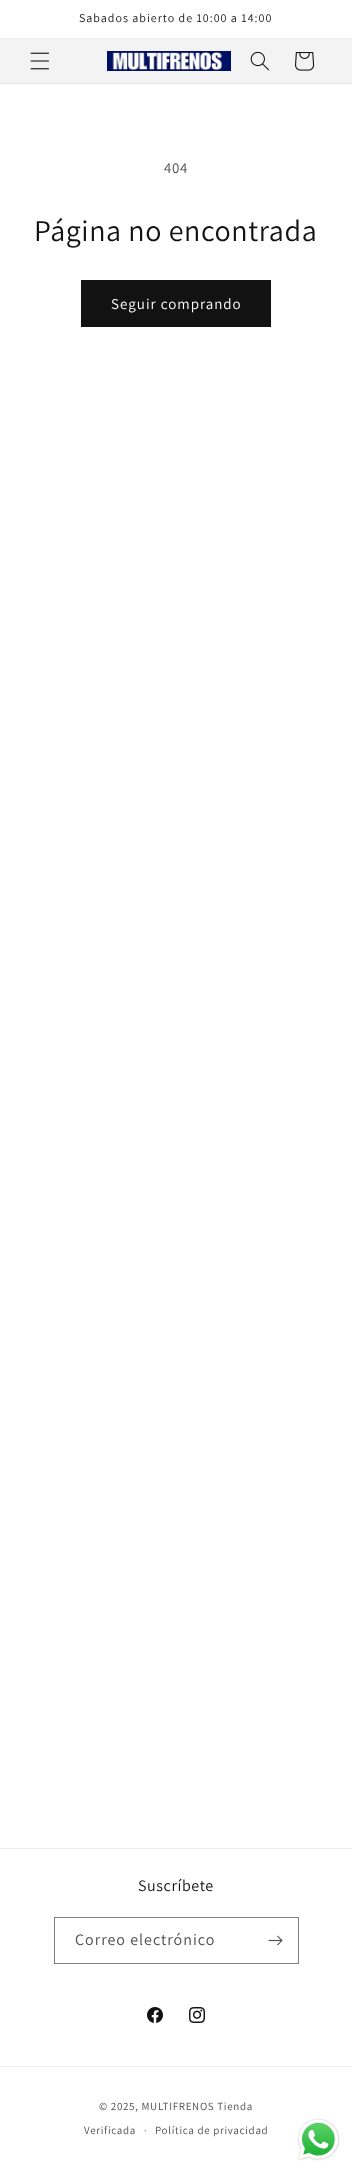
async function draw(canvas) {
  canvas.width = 352
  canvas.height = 2173
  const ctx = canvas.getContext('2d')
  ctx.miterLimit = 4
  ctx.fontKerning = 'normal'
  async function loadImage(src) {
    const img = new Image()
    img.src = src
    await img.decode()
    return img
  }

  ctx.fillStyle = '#fff'
  ctx.fillRect(0, 0, 352, 2173)
  ctx.fillStyle = '#ececec'
  ctx.fillRect(0, 38, 352, 1)
  ctx.letterSpacing = '1px'
  ctx.font = '12px Assistant'
  ctx.fillStyle = '#121212'
  ctx.fillText('Sabados abierto de 10:00 a 14:00', 79, 22)
  ctx.fillStyle = '#f3f3f3'
  ctx.fillRect(0, 39, 352, 44)
  ctx.fillStyle = '#e1e1e1'
  ctx.fillRect(0, 83, 352, 1)
  ctx.drawImage(await loadImage('image0.png'), 30, 52, 20, 18)
  ctx.drawImage(await loadImage('image1.png'), 107, 51, 124, 20)
  ctx.drawImage(await loadImage('image2.png'), 250, 51, 19, 20)
  ctx.drawImage(await loadImage('image3.png'), 295, 52, 20, 19)
  ctx.letterSpacing = '0.6px'
  ctx.font = '15px Assistant'
  ctx.fillStyle = '#4d4d4d'
  ctx.fillText('404', 164, 173)
  ctx.font = '30px Assistant'
  ctx.fillStyle = '#121212'
  ctx.fillText('Página no encontrada', 34, 241)
  ctx.fillRect(81, 280, 190, 47)
  ctx.letterSpacing = '1px'
  ctx.font = '15px Assistant'
  ctx.fillStyle = '#fff'
  ctx.fillText('Seguir comprando', 111, 309)
  ctx.fillStyle = '#ececec'
  ctx.fillRect(0, 1848, 352, 1)
  ctx.letterSpacing = '0.6px'
  ctx.font = '16px Assistant'
  ctx.fillStyle = '#121212'
  ctx.fillText('Suscríbete', 138, 1891)
  ctx.strokeStyle = '#7d7d7d'
  ctx.strokeRect(54.5, 1917.5, 244, 46)
  ctx.letterSpacing = '1px'
  ctx.fillStyle = '#4d4d4d'
  ctx.fillText('Correo electrónico', 75, 1945)
  ctx.drawImage(await loadImage('image4.png'), 268, 1935, 15, 11)
  ctx.drawImage(await loadImage('image5.png'), 147, 2007, 16, 16)
  ctx.drawImage(await loadImage('image6.png'), 189, 2007, 16, 16)
  ctx.fillStyle = '#ececec'
  ctx.fillRect(0, 2066, 352, 1)
  ctx.letterSpacing = '0.7px'
  ctx.font = '11px Assistant'
  ctx.fillStyle = '#4d4d4d'
  ctx.fillText('© 2025, MULTIFRENOS Tienda', 99, 2110)
  ctx.fillText('Verificada', 84, 2134)
  ctx.font = '10px Assistant'
  ctx.fillText('·', 144, 2134)
  ctx.font = '11px Assistant'
  ctx.fillText('Política de privacidad', 155, 2134)
  ctx.drawImage(await loadImage('image7.png'), 297, 2118, 43, 43)
}

draw(document.querySelector('canvas'))
